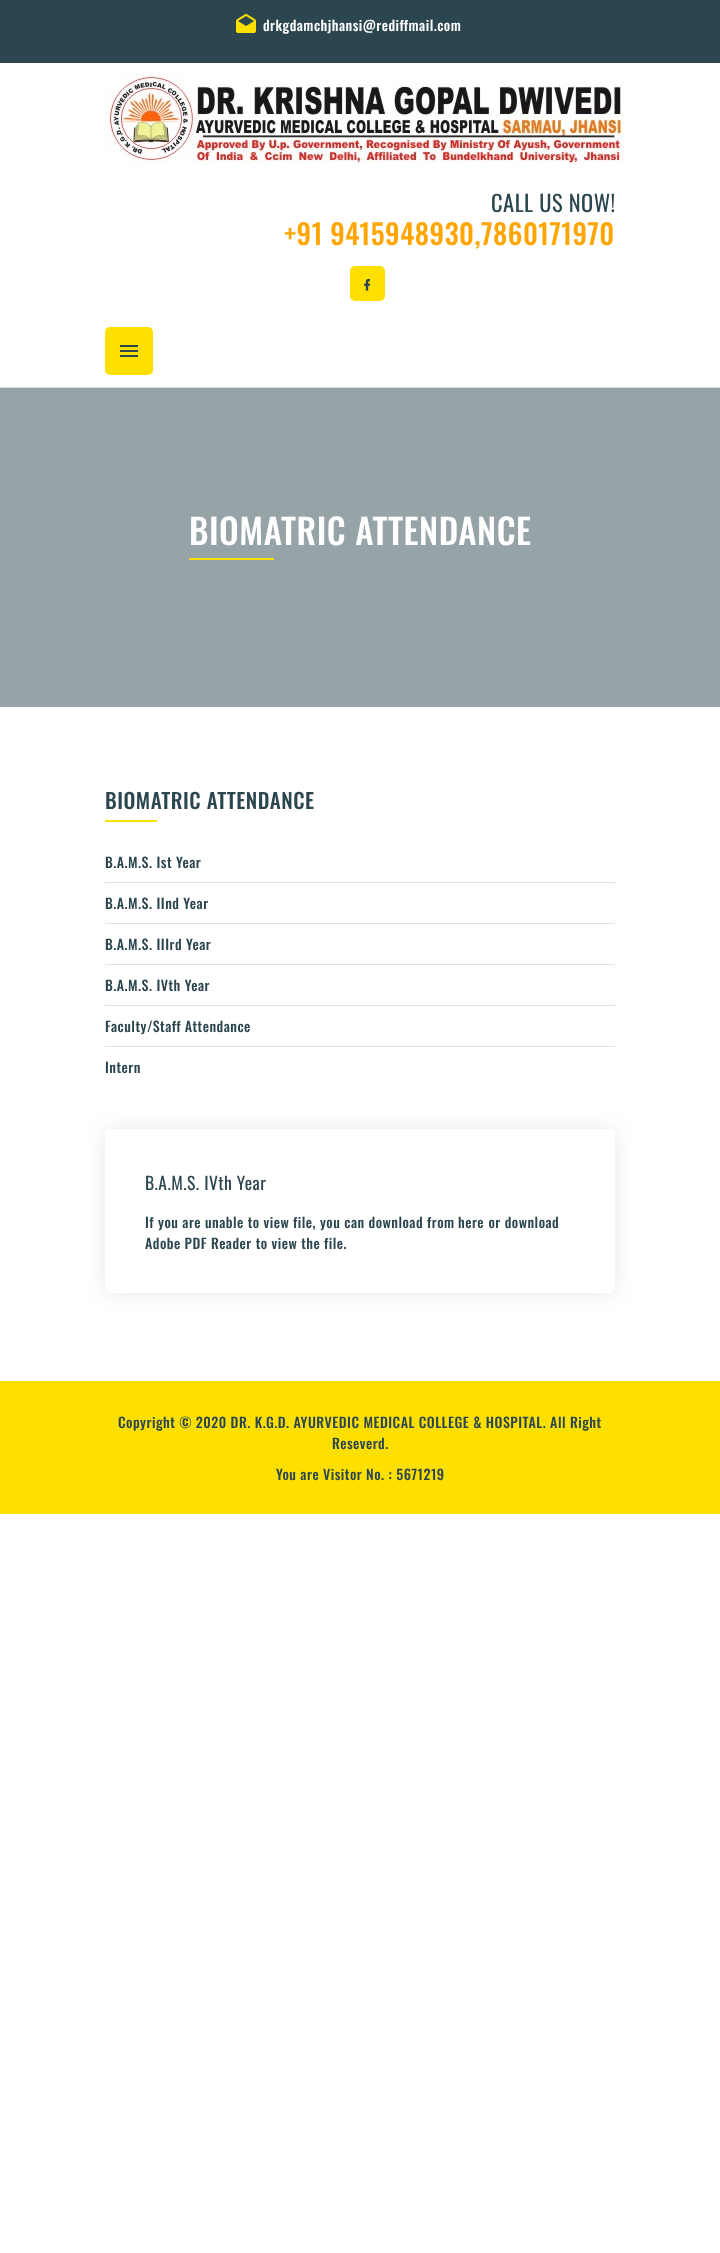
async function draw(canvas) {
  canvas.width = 720
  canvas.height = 2253
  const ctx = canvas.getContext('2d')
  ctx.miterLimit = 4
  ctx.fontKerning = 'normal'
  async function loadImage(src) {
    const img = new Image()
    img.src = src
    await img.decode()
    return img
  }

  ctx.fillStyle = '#fff'
  ctx.fillRect(0, 0, 720, 2253)
  ctx.fillStyle = '#2c464f'
  ctx.fillRect(0, 0, 720, 63)
  ctx.drawImage(await loadImage('image0.png'), 236, 13, 20, 20)
  ctx.letterSpacing = '0.5px'
  ctx.font = '500 14px Oswald'
  ctx.fillStyle = '#fff'
  ctx.fillText('drkgdamchjhansi@rediffmail.com', 263, 31)
  ctx.drawImage(await loadImage('image1.png'), 105, 74, 520, 90)
  ctx.font = '22.5px Oswald'
  ctx.fillStyle = '#2c464f'
  ctx.fillText('CALL US NOW!', 491, 212)
  ctx.font = '500 28px Oswald'
  ctx.fillStyle = '#ffa500'
  ctx.fillText('+91 9415948930,7860171970', 284, 245)
  ctx.fillStyle = '#fee000'
  ctx.beginPath()
  ctx.roundRect(350, 266, 35, 35, 5)
  ctx.fill()
  ctx.drawImage(await loadImage('image2.png'), 364, 278, 6, 13)
  ctx.fillStyle = '#ddd'
  ctx.fillRect(0, 387, 720, 1)
  ctx.fillStyle = '#fee000'
  ctx.beginPath()
  ctx.roundRect(105, 327, 48, 48, 5)
  ctx.fill()
  ctx.drawImage(await loadImage('image3.png'), 120, 345, 18, 12)
  ctx.fillStyle = '#96a3a7'
  ctx.fillRect(0, 388, 720, 319)
  ctx.font = '500 35px Oswald'
  ctx.fillStyle = '#fff'
  ctx.fillText('BIOMATRIC ATTENDANCE', 189, 545)
  ctx.fillStyle = '#fee000'
  ctx.fillRect(189, 558, 85, 2)
  ctx.font = '500 21px Oswald'
  ctx.fillStyle = '#2c464f'
  ctx.fillText('BIOMATRIC ATTENDANCE', 105, 809)
  ctx.fillStyle = '#fee000'
  ctx.fillRect(105, 820, 52, 2)
  ctx.fillStyle = '#e0e0e0'
  ctx.fillRect(105, 882, 510, 1)
  ctx.font = '500 14px Oswald'
  ctx.fillStyle = '#2c464f'
  ctx.fillText('B.A.M.S. Ist Year', 105, 868)
  ctx.fillStyle = '#e0e0e0'
  ctx.fillRect(105, 923, 510, 1)
  ctx.fillStyle = '#2c464f'
  ctx.fillText('B.A.M.S. IInd Year', 105, 909)
  ctx.fillStyle = '#e0e0e0'
  ctx.fillRect(105, 964, 510, 1)
  ctx.fillStyle = '#2c464f'
  ctx.fillText('B.A.M.S. IIIrd Year', 105, 950)
  ctx.fillStyle = '#e0e0e0'
  ctx.fillRect(105, 1005, 510, 1)
  ctx.fillStyle = '#2c464f'
  ctx.fillText('B.A.M.S. IVth Year', 105, 991)
  ctx.fillStyle = '#e0e0e0'
  ctx.fillRect(105, 1046, 510, 1)
  ctx.fillStyle = '#2c464f'
  ctx.fillText('Faculty/Staff Attendance', 105, 1032)
  ctx.fillText('Intern', 105, 1073)
  ctx.fillStyle = '#3e3e6521'
  ctx.filter = 'blur(10px)'
  ctx.beginPath()
  ctx.roundRect(105, 1129, 510, 164, 5)
  ctx.fill()
  ctx.filter = 'none'
  ctx.fillStyle = '#fff'
  ctx.beginPath()
  ctx.roundRect(105, 1129, 510, 164, 5)
  ctx.fill()
  ctx.font = '17.5px Oswald'
  ctx.fillStyle = '#2c464f'
  ctx.fillText('B.A.M.S. IVth Year', 145, 1190)
  ctx.drawImage(await loadImage('image4.png'), 145, 1216, 413, 34)
  ctx.font = '500 14px Oswald'
  ctx.fillText('here', 458, 1228)
  ctx.fillText('Adobe PDF Reader', 145, 1249)
  ctx.fillStyle = '#fee000'
  ctx.fillRect(0, 1381, 720, 133)
  ctx.fillStyle = '#2c464f'
  ctx.fillText('Copyright © 2020 DR. K.G.D. AYURVEDIC MEDICAL COLLEGE & HOSPITAL. All Right', 118, 1428)
  ctx.fillText('Reseverd.', 332, 1449)
  ctx.fillText('You are Visitor No. : 5671219', 276, 1480)
}

draw(document.querySelector('canvas'))
